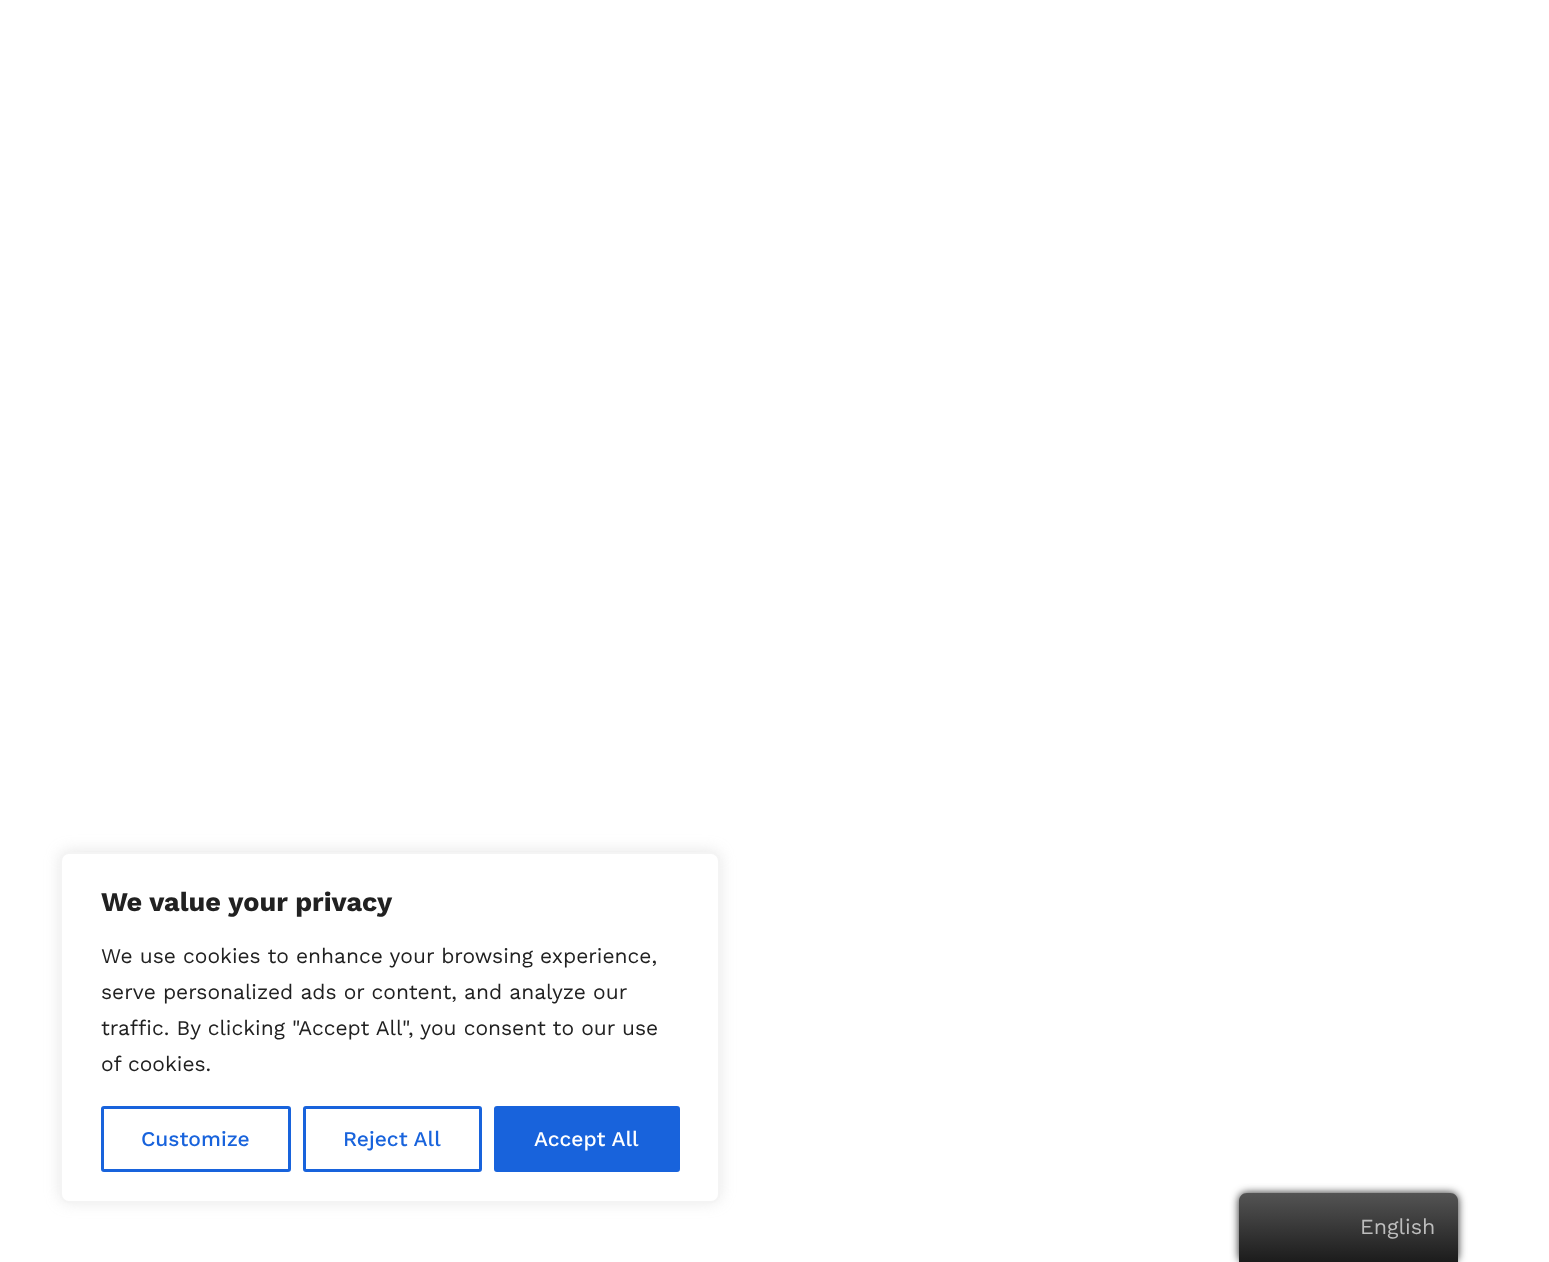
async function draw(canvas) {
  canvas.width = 1549
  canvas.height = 1262
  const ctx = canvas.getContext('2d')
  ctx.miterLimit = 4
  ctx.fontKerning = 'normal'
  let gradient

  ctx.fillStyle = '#fff'
  ctx.fillRect(0, 0, 1549, 1262)
  ctx.fillStyle = '#acabab4d'
  ctx.filter = 'blur(7.5px)'
  ctx.beginPath()
  ctx.roundRect(60, 851, 660, 351, 9)
  ctx.fill()
  ctx.filter = 'none'
  ctx.fillStyle = '#fff'
  ctx.beginPath()
  ctx.roundRect(61, 853, 658, 349, 8)
  ctx.fill()
  ctx.strokeStyle = '#f4f4f4'
  ctx.lineWidth = 2
  ctx.stroke()
  ctx.font = 'bold 27px Work Sans'
  ctx.fillStyle = '#212121'
  ctx.fillText('We value your privacy', 101, 911)
  ctx.font = '21px Work Sans'
  ctx.fillText('We use cookies to enhance your browsing experience,', 101, 963)
  ctx.fillText('serve personalized ads or content, and analyze our', 101, 999)
  ctx.fillText('traffic. By clicking "Accept All", you consent to our use', 101, 1035)
  ctx.fillText('of cookies.', 101, 1071)
  ctx.beginPath()
  ctx.roundRect(102.5, 1107.5, 187, 63, 1.5)
  ctx.strokeStyle = '#1863dc'
  ctx.lineWidth = 3
  ctx.stroke()
  ctx.font = '500 21px Work Sans'
  ctx.fillStyle = '#1863dc'
  ctx.fillText('Customize', 141, 1146)
  ctx.beginPath()
  ctx.roundRect(304.5, 1107.5, 176, 63, 1.5)
  ctx.stroke()
  ctx.fillText('Reject All', 343, 1146)
  ctx.beginPath()
  ctx.roundRect(495.5, 1107.5, 183, 63, 1.5)
  ctx.fill()
  ctx.stroke()
  ctx.fillStyle = '#fff'
  ctx.fillText('Accept All', 534, 1146)
  ctx.fillStyle = '#212121'
  ctx.filter = 'blur(4px)'
  ctx.beginPath()
  ctx.roundRect(1239, 1193, 219, 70, 8)
  ctx.fill()
  ctx.filter = 'none'
  gradient = ctx.createLinearGradient(1349, 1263, 1349, 1193)
  gradient.addColorStop(0, '#1b1b1b')
  gradient.addColorStop(1, '#545454')
  ctx.fillStyle = gradient
  ctx.beginPath()
  ctx.moveTo(1247, 1193)
  ctx.lineTo(1450, 1193)
  ctx.bezierCurveTo(1454.5, 1193, 1458, 1196.5, 1458, 1201)
  ctx.lineTo(1458, 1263)
  ctx.lineTo(1239, 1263)
  ctx.lineTo(1239, 1201)
  ctx.bezierCurveTo(1239, 1196.5, 1242.5, 1193, 1247, 1193)
  ctx.closePath()
  ctx.fill()
  ctx.font = '21.5px Work Sans'
  ctx.fillStyle = '#bdbdbd'
  ctx.fillText('English', 1360, 1234)
}

draw(document.querySelector('canvas'))
